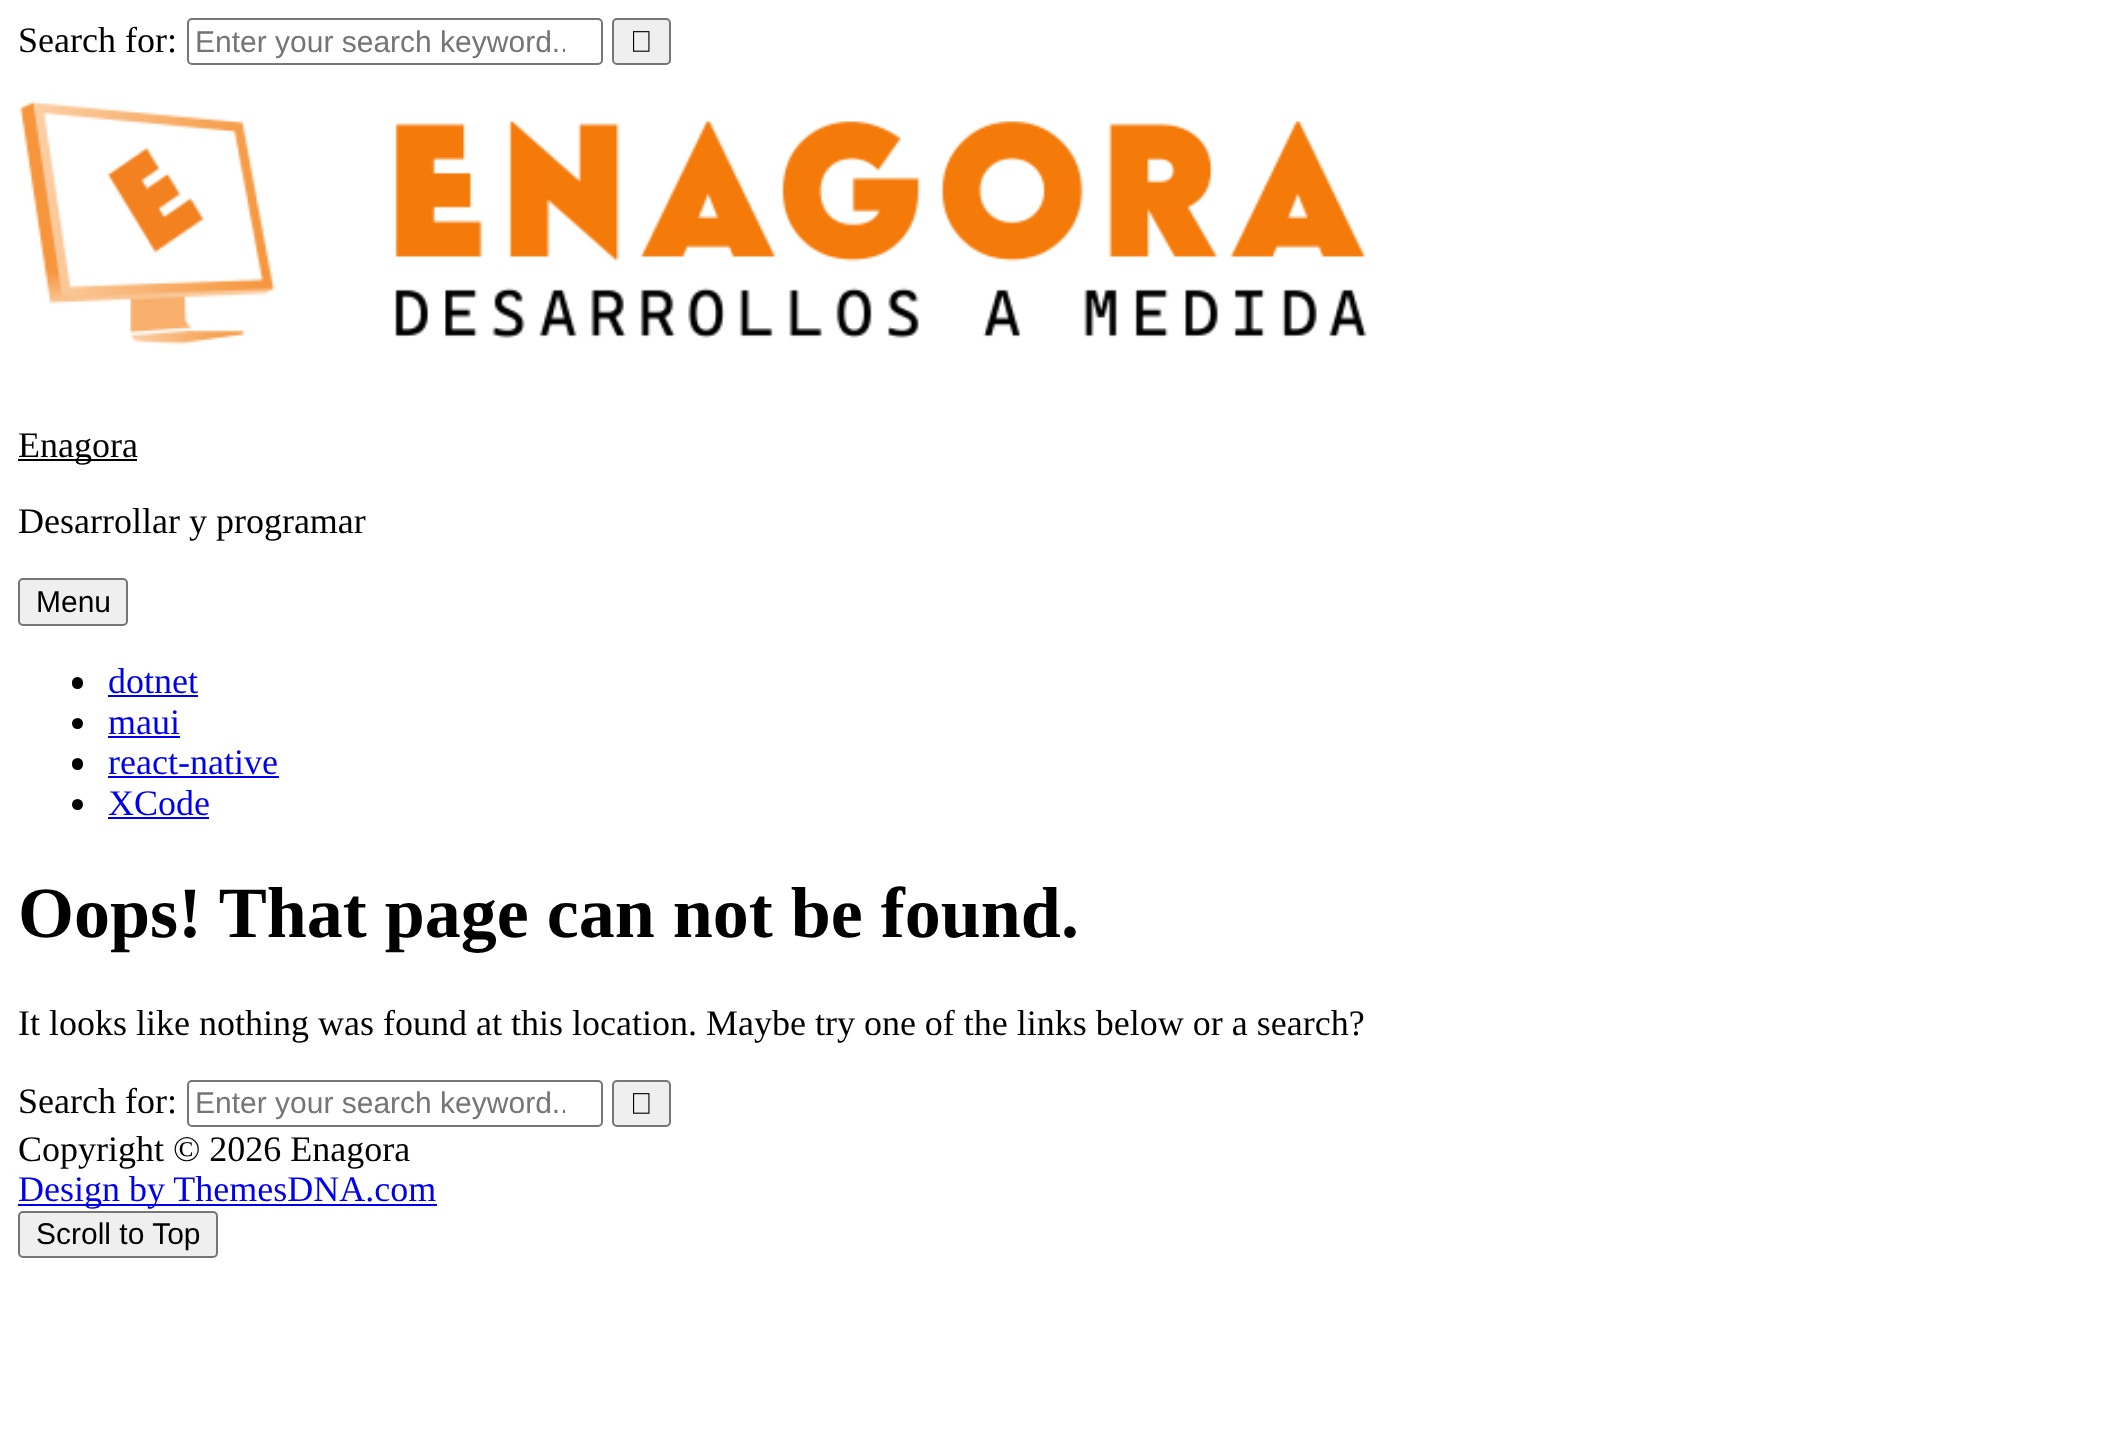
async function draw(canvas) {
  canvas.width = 2125
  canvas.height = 1449
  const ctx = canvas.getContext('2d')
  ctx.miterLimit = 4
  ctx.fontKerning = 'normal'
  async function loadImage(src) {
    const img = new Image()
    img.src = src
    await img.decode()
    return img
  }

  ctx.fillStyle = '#fff'
  ctx.fillRect(0, 0, 2125, 1449)
  ctx.font = '36px Liberation Serif'
  ctx.fillStyle = '#000'
  ctx.fillText('Search for:', 18, 52)
  ctx.beginPath()
  ctx.roundRect(188, 19, 414, 45, 4)
  ctx.strokeStyle = '#767676'
  ctx.lineWidth = 2
  ctx.stroke()
  ctx.save()
  ctx.beginPath()
  ctx.rect(196, 25, 369, 34)
  ctx.clip()
  ctx.font = '30px Liberation Sans'
  ctx.fillStyle = '#757575'
  ctx.fillText('Enter your search keyword..', 195, 52)
  ctx.restore()
  ctx.fillStyle = '#efefef'
  ctx.beginPath()
  ctx.roundRect(613, 19, 57, 45, 4)
  ctx.fill()
  ctx.stroke()
  ctx.drawImage(await loadImage('image0.png'), 633, 31, 17, 21)
  ctx.drawImage(await loadImage('image1.png'), 19, 100, 1348, 245)
  ctx.fillStyle = '#000'
  ctx.fillRect(18, 459, 119, 2)
  ctx.fillText('Enagora', 18, 457)
  ctx.fillText('Desarrollar y programar', 18, 533)
  ctx.fillStyle = '#efefef'
  ctx.beginPath()
  ctx.roundRect(19, 579, 108, 46, 4)
  ctx.fill()
  ctx.stroke()
  ctx.font = '30px Liberation Sans'
  ctx.fillStyle = '#000'
  ctx.fillText('Menu', 36, 612)
  ctx.beginPath()
  ctx.roundRect(72, 677, 11, 12, 5.5)
  ctx.fill()
  ctx.font = '36px Liberation Serif'
  ctx.fillStyle = '#00e'
  ctx.fillText('dotnet', 108, 693)
  ctx.fillRect(108, 695, 90, 2)
  ctx.fillStyle = '#000'
  ctx.beginPath()
  ctx.arc(77.5, 723.5, 5.5, 0, 2 * Math.PI)
  ctx.fill()
  ctx.fillStyle = '#00e'
  ctx.fillText('maui', 108, 734)
  ctx.fillRect(108, 736, 72, 2)
  ctx.fillStyle = '#000'
  ctx.beginPath()
  ctx.roundRect(72, 758, 11, 12, 5.5)
  ctx.fill()
  ctx.fillStyle = '#00e'
  ctx.fillText('react-native', 108, 774)
  ctx.fillRect(108, 776, 171, 2)
  ctx.fillStyle = '#000'
  ctx.beginPath()
  ctx.arc(77.5, 804.5, 5.5, 0, 2 * Math.PI)
  ctx.fill()
  ctx.fillStyle = '#00e'
  ctx.fillText('XCode', 108, 815)
  ctx.fillRect(108, 817, 101, 2)
  ctx.font = 'bold 72px Liberation Serif'
  ctx.fillStyle = '#000'
  ctx.fillText('Oops! That page can not be found.', 18, 937)
  ctx.font = '36px Liberation Serif'
  ctx.fillText('It looks like nothing was found at this location. Maybe try one of the links below or a search?', 18, 1035)
  ctx.fillText('Search for:', 18, 1113)
  ctx.beginPath()
  ctx.roundRect(188, 1081, 414, 45, 4)
  ctx.stroke()
  ctx.save()
  ctx.beginPath()
  ctx.rect(196, 1087, 369, 34)
  ctx.clip()
  ctx.font = '30px Liberation Sans'
  ctx.fillStyle = '#757575'
  ctx.fillText('Enter your search keyword..', 195, 1113)
  ctx.restore()
  ctx.fillStyle = '#efefef'
  ctx.beginPath()
  ctx.roundRect(613, 1081, 57, 45, 4)
  ctx.fill()
  ctx.stroke()
  ctx.drawImage(await loadImage('image0.png'), 633, 1093, 17, 21)
  ctx.fillStyle = '#000'
  ctx.fillText('Copyright © 2026 Enagora', 18, 1161)
  ctx.fillStyle = '#00e'
  ctx.fillRect(18, 1204, 419, 2)
  ctx.fillText('Design by ThemesDNA.com', 18, 1201)
  ctx.fillStyle = '#efefef'
  ctx.beginPath()
  ctx.roundRect(19, 1212, 198, 45, 4)
  ctx.fill()
  ctx.stroke()
  ctx.font = '30px Liberation Sans'
  ctx.fillStyle = '#000'
  ctx.fillText('Scroll to Top', 36, 1244)
}

draw(document.querySelector('canvas'))
